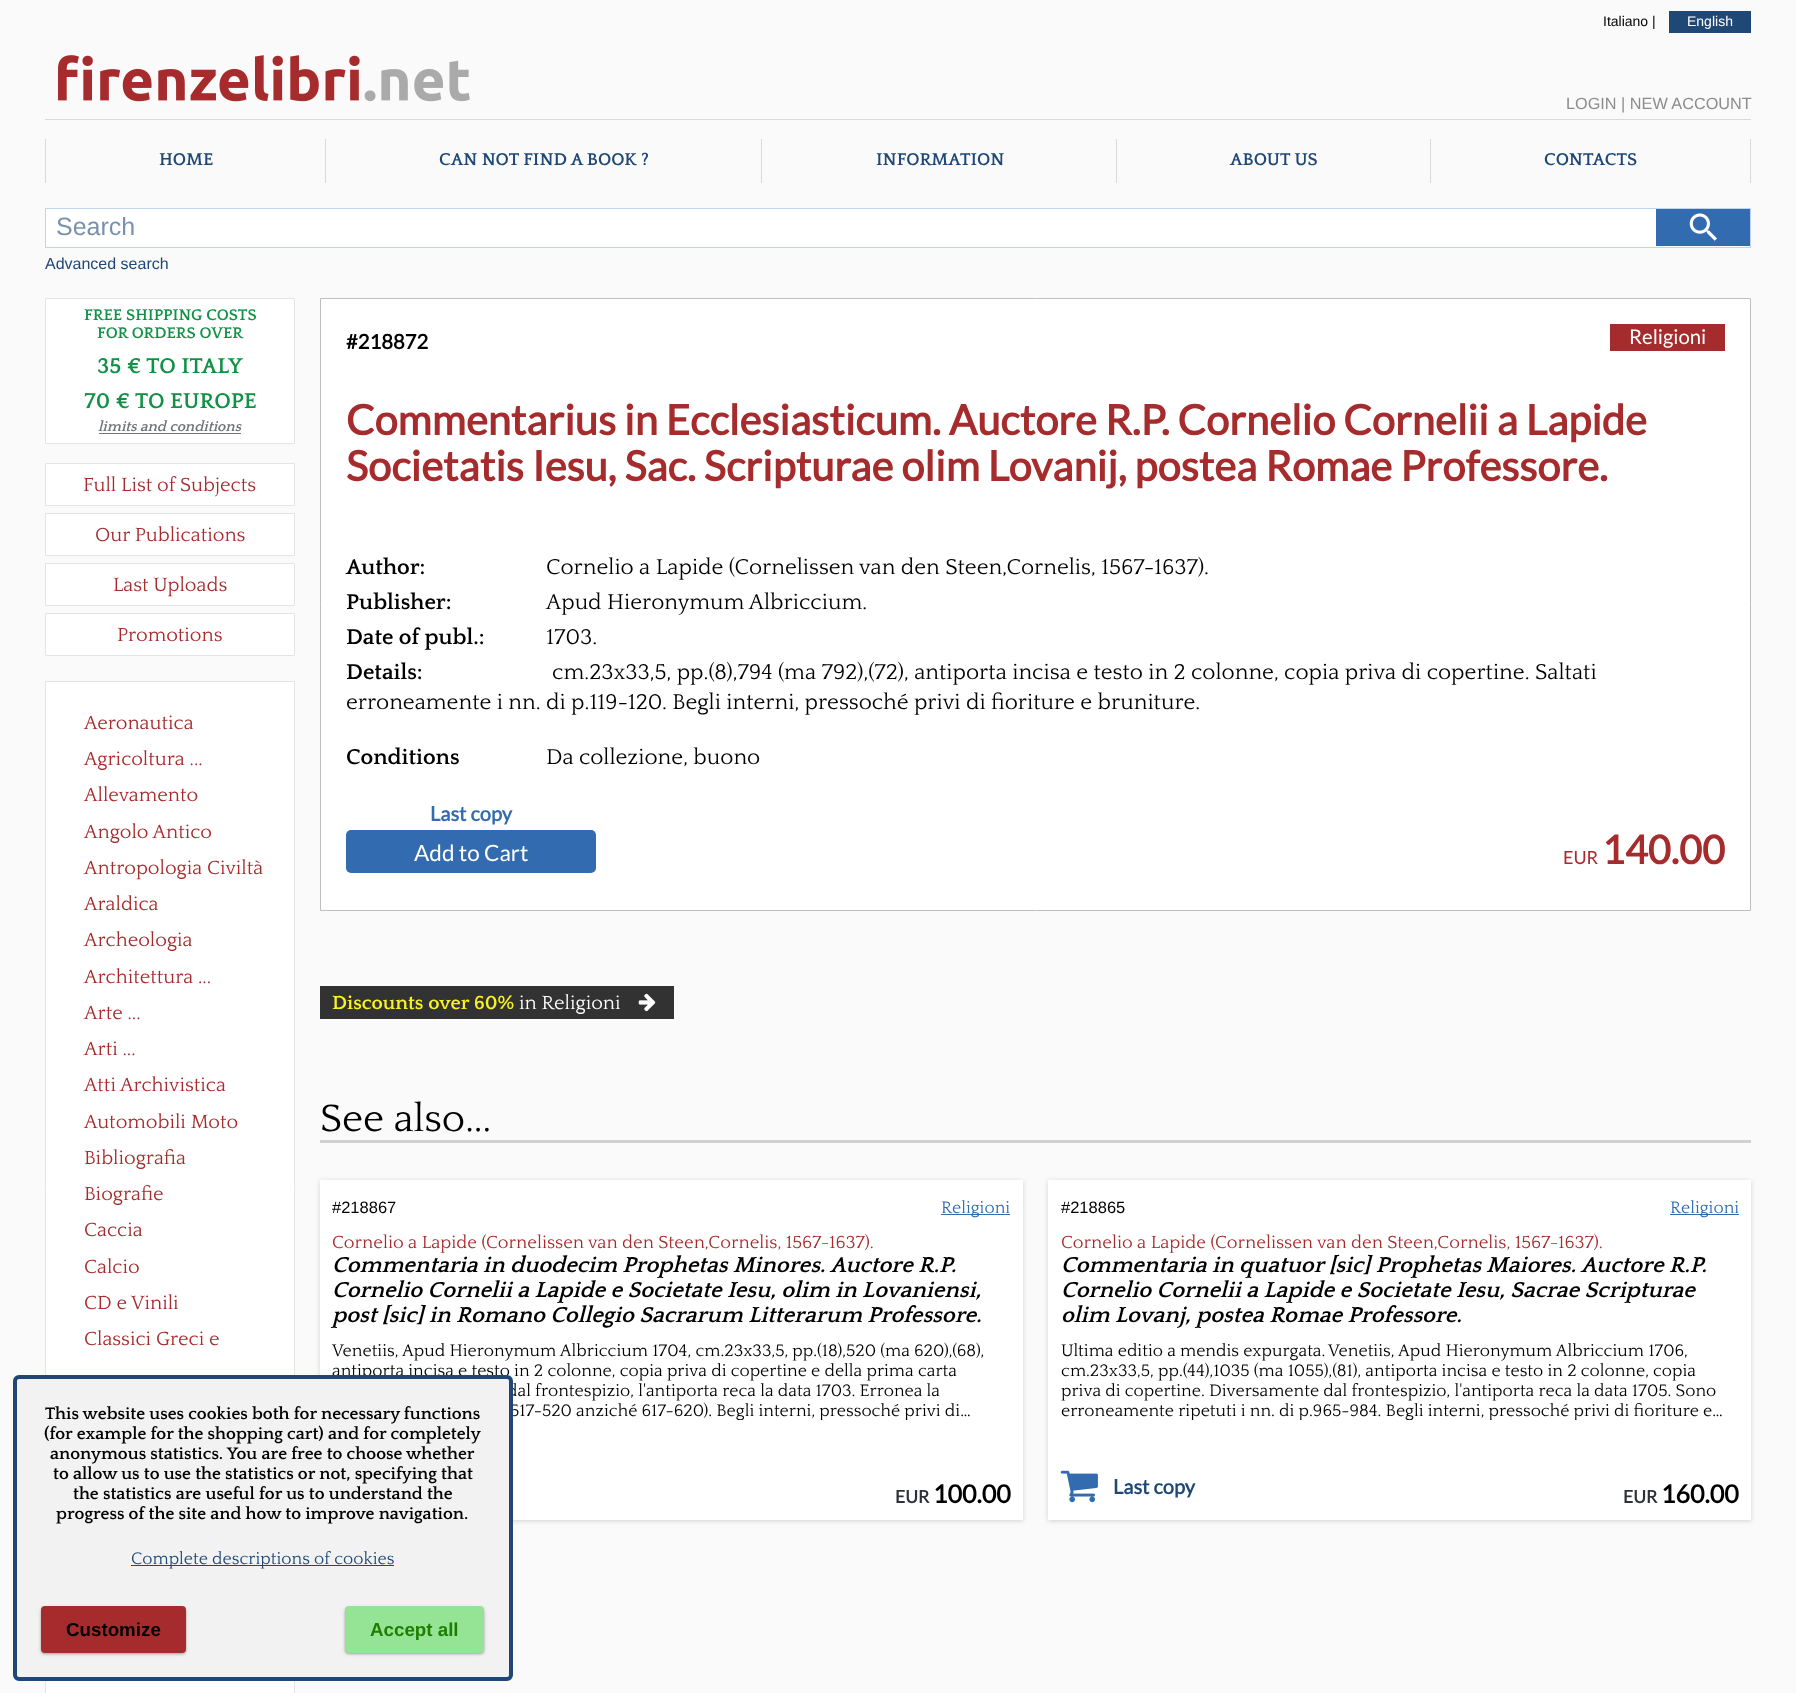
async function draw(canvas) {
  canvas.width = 1796
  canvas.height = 1693
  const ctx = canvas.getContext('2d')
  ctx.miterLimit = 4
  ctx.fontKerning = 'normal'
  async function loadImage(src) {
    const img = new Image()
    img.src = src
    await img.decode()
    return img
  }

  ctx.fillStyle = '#fafafa'
  ctx.fillRect(0, 0, 1796, 1693)
  ctx.font = '14px Liberation Sans'
  ctx.fillStyle = '#000'
  ctx.fillText('Italiano |', 1603, 26)
  ctx.fillStyle = '#204877'
  ctx.fillRect(1669, 11, 82, 22)
  ctx.fillStyle = '#fff'
  ctx.fillText('English', 1687, 26)
  ctx.drawImage(await loadImage('image0.png'), 58, 55, 412, 47)
  ctx.font = '16.25px Liberation Sans'
  ctx.fillStyle = '#8c8c8c'
  ctx.fillText('LOGIN | NEW ACCOUNT', 1566, 109)
  ctx.fillStyle = '#d9d9d9'
  ctx.fillRect(45, 119, 1706, 1)
  ctx.fillRect(45, 139, 1, 44)
  ctx.font = 'bold 18px Quattrocento'
  ctx.fillStyle = '#204877'
  ctx.fillText('HOME', 159, 165)
  ctx.fillStyle = '#d9d9d9'
  ctx.fillRect(325, 139, 1, 44)
  ctx.fillStyle = '#204877'
  ctx.fillText('CAN NOT FIND A BOOK ?', 439, 165)
  ctx.fillStyle = '#d9d9d9'
  ctx.fillRect(761, 139, 1, 44)
  ctx.fillStyle = '#204877'
  ctx.fillText('INFORMATION', 876, 165)
  ctx.fillStyle = '#d9d9d9'
  ctx.fillRect(1116, 139, 1, 44)
  ctx.fillStyle = '#204877'
  ctx.fillText('ABOUT US', 1230, 165)
  ctx.fillStyle = '#d9d9d9'
  ctx.fillRect(1750, 139, 1, 44)
  ctx.fillRect(1430, 139, 1, 44)
  ctx.fillStyle = '#204877'
  ctx.fillText('CONTACTS', 1544, 165)
  ctx.strokeStyle = '#c0d5ed'
  ctx.strokeRect(45.5, 208.5, 1705, 39)
  ctx.fillStyle = '#fff'
  ctx.fillRect(46, 209, 1610, 37)
  ctx.font = '25px Liberation Sans'
  ctx.fillStyle = '#7991ad'
  ctx.fillText('Search', 56, 235)
  ctx.fillStyle = '#326baf'
  ctx.fillRect(1656, 209, 94, 37)
  ctx.drawImage(await loadImage('image1.png'), 1689, 213, 28, 28)
  ctx.font = '16px Liberation Sans'
  ctx.fillStyle = '#204877'
  ctx.fillText('Advanced search', 45, 269)
  ctx.fillStyle = '#fff'
  ctx.beginPath()
  ctx.rect(45.5, 298.5, 249, 145)
  ctx.fill()
  ctx.strokeStyle = '#e4e4e4'
  ctx.stroke()
  ctx.font = 'bold 16.25px Quattrocento'
  ctx.fillStyle = '#109246'
  ctx.fillText('FREE SHIPPING COSTS', 84, 320)
  ctx.fillText('FOR ORDERS OVER', 97, 338)
  ctx.font = 'bold 22.5px Quattrocento'
  ctx.fillText('35 € TO ITALY', 97, 373)
  ctx.fillText('70 € TO EUROPE', 84, 408)
  ctx.font = 'italic bold 14.6px Quattrocento'
  ctx.fillStyle = '#707478'
  ctx.fillText('limits and conditions', 98, 431)
  ctx.fillRect(99, 433, 142, 1)
  ctx.fillStyle = '#fff'
  ctx.beginPath()
  ctx.rect(45.5, 463.5, 249, 42)
  ctx.fill()
  ctx.stroke()
  ctx.font = '20px Quattrocento'
  ctx.fillStyle = '#a62b2d'
  ctx.fillText('Full List of Subjects', 83, 491)
  ctx.fillStyle = '#fff'
  ctx.beginPath()
  ctx.rect(45.5, 513.5, 249, 42)
  ctx.fill()
  ctx.stroke()
  ctx.fillStyle = '#a62b2d'
  ctx.fillText('Our Publications', 95, 541)
  ctx.fillStyle = '#fff'
  ctx.beginPath()
  ctx.rect(45.5, 563.5, 249, 42)
  ctx.fill()
  ctx.stroke()
  ctx.fillStyle = '#a62b2d'
  ctx.fillText('Last Uploads', 113, 591)
  ctx.fillStyle = '#fff'
  ctx.beginPath()
  ctx.rect(45.5, 613.5, 249, 42)
  ctx.fill()
  ctx.stroke()
  ctx.fillStyle = '#a62b2d'
  ctx.fillText('Promotions', 117, 641)
  ctx.fillStyle = '#fff'
  ctx.beginPath()
  ctx.rect(45.5, 681.5, 249, 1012)
  ctx.fill()
  ctx.stroke()
  ctx.fillStyle = '#a62b2d'
  ctx.fillText('Aeronautica', 84, 729)
  ctx.fillText('Agricoltura ...', 84, 765)
  ctx.fillText('Allevamento', 84, 801)
  ctx.fillText('Angolo Antico', 84, 838)
  ctx.fillText('Antropologia Civiltà', 84, 874)
  ctx.fillText('Araldica', 84, 910)
  ctx.fillText('Archeologia', 84, 946)
  ctx.fillText('Architettura ...', 84, 983)
  ctx.fillText('Arte ...', 84, 1019)
  ctx.fillText('Arti ...', 84, 1055)
  ctx.fillText('Atti Archivistica', 84, 1091)
  ctx.fillText('Automobili Moto', 84, 1128)
  ctx.fillText('Bibliografia', 84, 1164)
  ctx.fillText('Biografie', 84, 1200)
  ctx.fillText('Caccia', 84, 1236)
  ctx.fillText('Calcio', 84, 1273)
  ctx.fillText('CD e Vinili', 84, 1309)
  ctx.fillText('Classici Greci e', 84, 1345)
  ctx.fillStyle = '#fff'
  ctx.beginPath()
  ctx.rect(320.5, 298.5, 1430, 612)
  ctx.fill()
  ctx.strokeStyle = '#bebebe'
  ctx.stroke()
  ctx.font = 'bold 20.25px Lato'
  ctx.fillStyle = '#000'
  ctx.fillText('#218872', 346, 349)
  ctx.fillStyle = '#a62b2d'
  ctx.fillRect(1610, 324, 115, 27)
  ctx.font = '20.25px Lato'
  ctx.fillStyle = '#fff'
  ctx.fillText('Religioni', 1629, 344)
  ctx.font = 'bold 41.6px Lato'
  ctx.fillStyle = '#a62b2d'
  ctx.fillText('Commentarius in Ecclesiasticum. Auctore R.P. Cornelio Cornelii a Lapide', 346, 435)
  ctx.fillText('Societatis Iesu, Sac. Scripturae olim Lovanij, postea Romae Professore.', 346, 481)
  ctx.font = 'bold 22.5px Quattrocento'
  ctx.fillStyle = '#000'
  ctx.fillText('Author:', 346, 574)
  ctx.font = '22.5px Quattrocento'
  ctx.fillText('Cornelio a Lapide (Cornelissen van den Steen,Cornelis, 1567-1637).', 546, 574)
  ctx.font = 'bold 22.5px Quattrocento'
  ctx.fillText('Publisher:', 346, 609)
  ctx.font = '22.5px Quattrocento'
  ctx.fillText('Apud Hieronymum Albriccium.', 546, 609)
  ctx.font = 'bold 22.5px Quattrocento'
  ctx.fillText('Date of publ.:', 346, 644)
  ctx.font = '22.5px Quattrocento'
  ctx.fillText('1703.', 546, 644)
  ctx.font = 'bold 22.5px Quattrocento'
  ctx.fillText('Details:', 346, 679)
  ctx.font = '22.5px Quattrocento'
  ctx.fillText('cm.23x33,5, pp.(8),794 (ma 792),(72), antiporta incisa e testo in 2 colonne, copia priva di copertine. Saltati', 552, 679)
  ctx.fillText('erroneamente i nn. di p.119-120. Begli interni, pressoché privi di fioriture e bruniture.', 346, 709)
  ctx.font = 'bold 22.5px Quattrocento'
  ctx.fillText('Conditions', 346, 764)
  ctx.font = '22.5px Quattrocento'
  ctx.fillText('Da collezione, buono', 546, 764)
  ctx.font = 'bold 20px Lato'
  ctx.fillStyle = '#326baf'
  ctx.fillText('Last copy', 430, 821)
  ctx.beginPath()
  ctx.roundRect(346, 830, 250, 43, 5)
  ctx.fill()
  ctx.font = '22.5px Lato'
  ctx.fillStyle = '#fff'
  ctx.fillText('Add to Cart', 414, 861)
  ctx.font = '18px Lato'
  ctx.fillStyle = '#a62b2d'
  ctx.fillText('EUR', 1563, 864)
  ctx.font = 'bold 39.5px Lato'
  ctx.fillText('140.00', 1602, 864)
  ctx.fillStyle = '#323232'
  ctx.fillRect(320, 986, 354, 33)
  ctx.font = 'bold 20px Quattrocento'
  ctx.fillStyle = '#f9f224'
  ctx.fillText('Discounts over 60%', 332, 1009)
  ctx.font = '20px Quattrocento'
  ctx.fillStyle = '#fff'
  ctx.fillText('in Religioni', 519, 1009)
  ctx.drawImage(await loadImage('image2.png'), 638, 993, 18, 19)
  ctx.fillStyle = '#d1d1d1'
  ctx.fillRect(320, 1140, 1431, 3)
  ctx.font = '40px Quattrocento'
  ctx.fillStyle = '#000'
  ctx.fillText('See also...', 320, 1131)
  ctx.fillStyle = '#00000029'
  ctx.filter = 'blur(2.5px)'
  ctx.beginPath()
  ctx.rect(320, 1181, 703, 340)
  ctx.fill()
  ctx.filter = 'none'
  ctx.fillStyle = '#fff'
  ctx.fillRect(320, 1180, 703, 340)
  ctx.font = '16.5px Liberation Sans'
  ctx.fillStyle = '#000'
  ctx.fillText('#218867', 332, 1213)
  ctx.fillStyle = '#326baf'
  ctx.fillRect(941, 1214, 69, 1)
  ctx.font = '17.5px Quattrocento'
  ctx.fillText('Religioni', 941, 1213)
  ctx.font = '18.4px Quattrocento'
  ctx.fillStyle = '#a62b2d'
  ctx.fillText('Cornelio a Lapide (Cornelissen van den Steen,Cornelis, 1567-1637).', 332, 1248)
  ctx.font = 'italic bold 22.75px Quattrocento'
  ctx.fillStyle = '#000'
  ctx.fillText('Commentaria in duodecim Prophetas Minores. Auctore R.P.', 332, 1272)
  ctx.fillText('Cornelio Cornelii a Lapide e Societate Iesu, olim in Lovaniensi,', 332, 1297)
  ctx.fillText('post [sic] in Romano Collegio Sacrarum Litterarum Professore.', 332, 1322)
  ctx.font = '17.5px Quattrocento'
  ctx.fillText('Venetiis,', 332, 1356)
  ctx.fillText('Apud Hieronymum Albriccium 1704, cm.23x33,5, pp.(18),520 (ma 620),(68),', 402, 1356)
  ctx.fillText('antiporta incisa e testo in 2 colonne, copia priva di copertine e della prima carta', 332, 1376)
  ctx.fillText('dal frontespizio, l\'antiporta reca la data 1703. Erronea la', 507, 1396)
  ctx.save()
  ctx.beginPath()
  ctx.rect(333, 1340, 677, 80)
  ctx.clip()
  ctx.fillText('517-520 anziché 617-620). Begli interni, pressoché privi di…', 510, 1416)
  ctx.restore()
  ctx.font = 'bold 17.5px Lato'
  ctx.fillStyle = '#2f3138'
  ctx.fillText('EUR', 895, 1503)
  ctx.font = 'bold 25px Lato'
  ctx.fillStyle = '#000'
  ctx.fillText('100.00', 933, 1503)
  ctx.fillStyle = '#00000029'
  ctx.filter = 'blur(2.5px)'
  ctx.beginPath()
  ctx.rect(1048, 1181, 703, 340)
  ctx.fill()
  ctx.filter = 'none'
  ctx.fillStyle = '#fff'
  ctx.fillRect(1048, 1180, 703, 340)
  ctx.font = '16.5px Liberation Sans'
  ctx.fillStyle = '#000'
  ctx.fillText('#218865', 1061, 1213)
  ctx.fillStyle = '#326baf'
  ctx.fillRect(1670, 1214, 69, 1)
  ctx.font = '17.5px Quattrocento'
  ctx.fillText('Religioni', 1670, 1213)
  ctx.font = '18.4px Quattrocento'
  ctx.fillStyle = '#a62b2d'
  ctx.fillText('Cornelio a Lapide (Cornelissen van den Steen,Cornelis, 1567-1637).', 1061, 1248)
  ctx.font = 'italic bold 22.75px Quattrocento'
  ctx.fillStyle = '#000'
  ctx.fillText('Commentaria in quatuor [sic] Prophetas Maiores. Auctore R.P.', 1061, 1272)
  ctx.fillText('Cornelio Cornelii a Lapide e Societate Iesu, Sacrae Scripturae', 1061, 1297)
  ctx.fillText('olim Lovanj, postea Romae Professore.', 1061, 1322)
  ctx.font = '17.5px Quattrocento'
  ctx.fillText('Ultima editio a mendis expurgata.', 1061, 1356)
  ctx.fillText('Venetiis,', 1328, 1356)
  ctx.fillText('Apud Hieronymum Albriccium 1706,', 1398, 1356)
  ctx.fillText('cm.23x33,5, pp.(44),1035 (ma 1055),(81), antiporta incisa e testo in 2 colonne, copia', 1061, 1376)
  ctx.fillText('priva di copertine. Diversamente dal frontespizio, l\'antiporta reca la data 1705. Sono', 1061, 1396)
  ctx.save()
  ctx.beginPath()
  ctx.rect(1060, 1340, 679, 80)
  ctx.clip()
  ctx.fillText('erroneamente ripetuti i nn. di p.965-984. Begli interni, pressoché privi di fioriture e…', 1061, 1416)
  ctx.restore()
  ctx.drawImage(await loadImage('image3.png'), 1060, 1470, 38, 33)
  ctx.font = 'bold 20px Lato'
  ctx.fillStyle = '#204877'
  ctx.fillText('Last copy', 1113, 1494)
  ctx.font = 'bold 17.5px Lato'
  ctx.fillStyle = '#2f3138'
  ctx.fillText('EUR', 1623, 1503)
  ctx.font = 'bold 25px Lato'
  ctx.fillStyle = '#000'
  ctx.fillText('160.00', 1661, 1503)
  ctx.fillStyle = '#f2f2f2'
  ctx.beginPath()
  ctx.roundRect(15, 1377, 496, 302, 4)
  ctx.fill()
  ctx.strokeStyle = '#204877'
  ctx.lineWidth = 4
  ctx.stroke()
  ctx.font = 'bold 17.5px Quattrocento'
  ctx.fillStyle = '#000'
  ctx.fillText('This website uses cookies both for necessary functions', 45, 1419)
  ctx.fillText('(for example for the shopping cart) and for completely', 44, 1439)
  ctx.fillText('anonymous statistics. You are free to choose whether', 50, 1459)
  ctx.fillText('to allow us to use the statistics or not, specifying that', 53, 1479)
  ctx.fillText('the statistics are useful for us to understand the', 73, 1499)
  ctx.fillText('progress of the site and how to improve navigation.', 56, 1519)
  ctx.fillStyle = '#204877'
  ctx.fillRect(131, 1565, 263, 1)
  ctx.font = '17.5px Quattrocento'
  ctx.fillText('Complete descriptions of cookies', 131, 1564)
  ctx.fillStyle = '#0000003d'
  ctx.filter = 'blur(1px)'
  ctx.beginPath()
  ctx.roundRect(41, 1608, 145, 46, 4)
  ctx.fill()
  ctx.filter = 'none'
  ctx.fillStyle = '#0000001f'
  ctx.filter = 'blur(2px)'
  ctx.beginPath()
  ctx.roundRect(41, 1608, 145, 46, 4)
  ctx.fill()
  ctx.filter = 'none'
  ctx.fillStyle = '#a62b2d'
  ctx.beginPath()
  ctx.roundRect(41, 1606, 145, 47, 4)
  ctx.fill()
  ctx.font = 'bold 18.75px Liberation Sans'
  ctx.fillStyle = '#000'
  ctx.fillText('Customize', 66, 1636)
  ctx.fillStyle = '#0000003d'
  ctx.filter = 'blur(1px)'
  ctx.beginPath()
  ctx.roundRect(345, 1608, 139, 46, 4)
  ctx.fill()
  ctx.filter = 'none'
  ctx.fillStyle = '#0000001f'
  ctx.filter = 'blur(2px)'
  ctx.beginPath()
  ctx.roundRect(345, 1608, 139, 46, 4)
  ctx.fill()
  ctx.filter = 'none'
  ctx.fillStyle = '#95e395'
  ctx.beginPath()
  ctx.roundRect(345, 1606, 139, 47, 4)
  ctx.fill()
  ctx.fillStyle = '#1f7e00'
  ctx.fillText('Accept all', 370, 1636)
}

draw(document.querySelector('canvas'))
